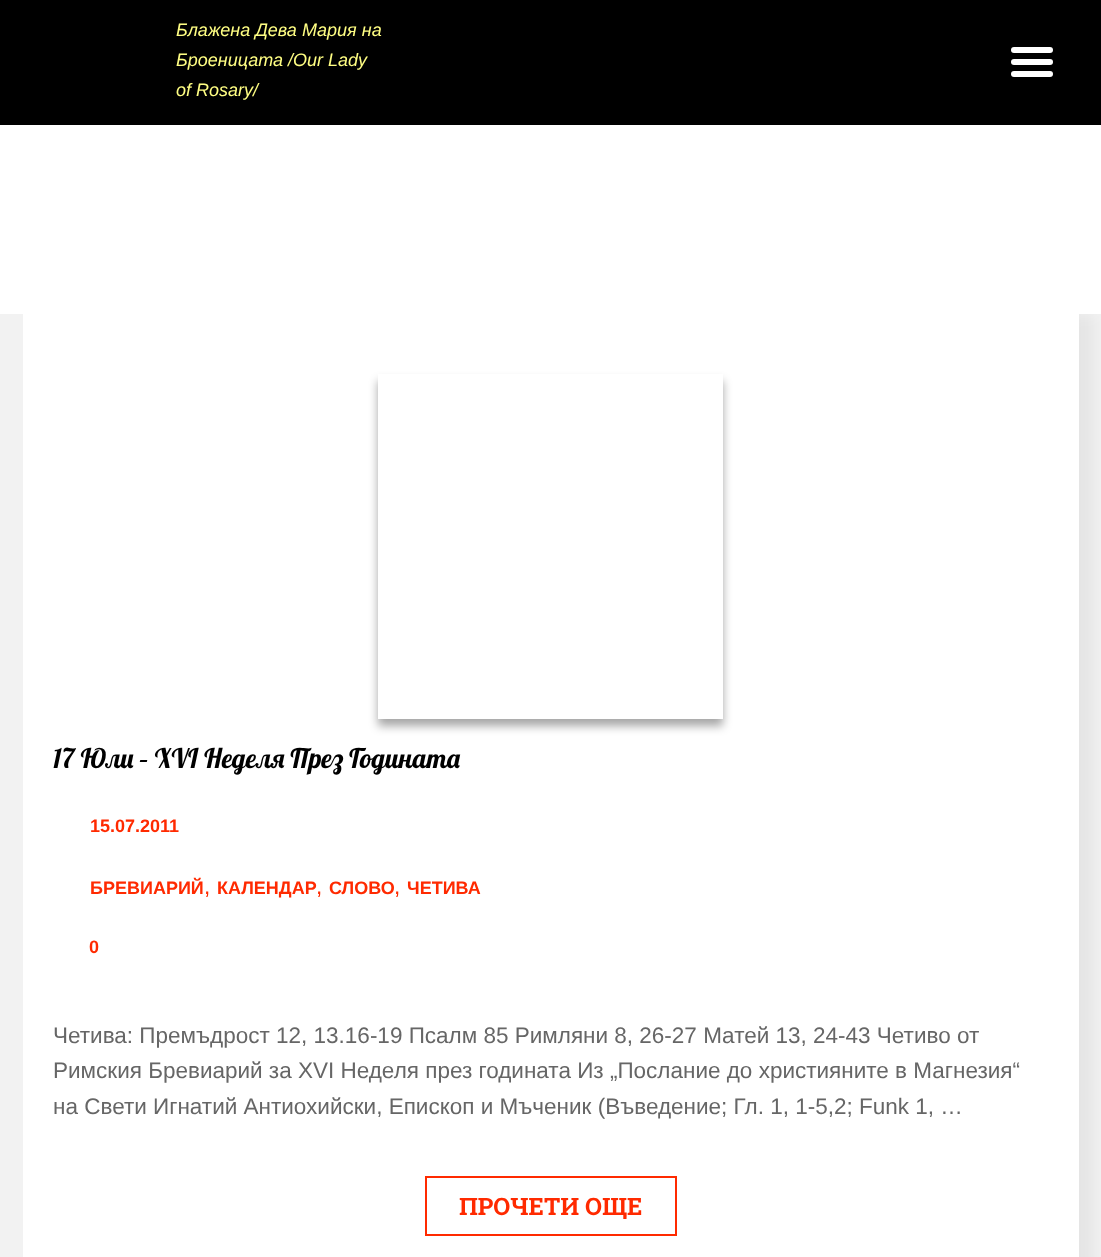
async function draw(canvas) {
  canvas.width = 1101
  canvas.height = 1257
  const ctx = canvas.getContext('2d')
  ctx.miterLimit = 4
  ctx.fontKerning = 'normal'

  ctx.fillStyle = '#fff'
  ctx.fillRect(0, 0, 1101, 1257)
  ctx.fillStyle = '#000'
  ctx.fillRect(0, 0, 1101, 125)
  ctx.font = 'italic 18px Arimo'
  ctx.fillStyle = '#fffe83'
  ctx.fillText('Блажена Дева Мария на', 176, 36)
  ctx.fillText('Броеницата /Our Lady', 176, 66)
  ctx.fillText('of Rosary/', 176, 96)
  ctx.fillStyle = '#fff'
  ctx.beginPath()
  ctx.roundRect(1011, 47, 42, 6, 3)
  ctx.fill()
  ctx.beginPath()
  ctx.roundRect(1011, 59, 42, 6, 3)
  ctx.fill()
  ctx.beginPath()
  ctx.roundRect(1011, 71, 42, 6, 3)
  ctx.fill()
  ctx.fillStyle = '#f2f2f2'
  ctx.fillRect(0, 314, 1101, 943)
  ctx.save()
  ctx.beginPath()
  ctx.rect(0, 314, 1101, 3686)
  ctx.clip()
  ctx.fillStyle = '#0000000d'
  ctx.filter = 'blur(7.5px)'
  ctx.beginPath()
  ctx.rect(38, 314, 1056, 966)
  ctx.fill()
  ctx.filter = 'none'
  ctx.restore()
  ctx.fillStyle = '#fff'
  ctx.fillRect(23, 314, 1056, 943)
  ctx.save()
  ctx.beginPath()
  ctx.moveTo(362, 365)
  ctx.lineTo(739, 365)
  ctx.lineTo(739, 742)
  ctx.lineTo(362, 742)
  ctx.closePath()
  ctx.moveTo(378, 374)
  ctx.lineTo(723, 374)
  ctx.lineTo(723, 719)
  ctx.lineTo(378, 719)
  ctx.closePath()
  ctx.clip('evenodd')
  ctx.fillStyle = '#00000059'
  ctx.filter = 'blur(5px)'
  ctx.beginPath()
  ctx.rect(378, 381, 345, 345)
  ctx.fill()
  ctx.filter = 'none'
  ctx.restore()
  ctx.font = '27px Lobster'
  ctx.fillStyle = '#000'
  ctx.fillText('17 Юли – XVI Неделя През Годината', 53, 768)
  ctx.font = 'bold 18px Arimo'
  ctx.fillStyle = '#ff2a00'
  ctx.fillText('15.07.2011', 90, 832)
  ctx.fillText('БРЕВИАРИЙ', 90, 894)
  ctx.font = '22.5px Arimo'
  ctx.fillText(',', 204, 894)
  ctx.font = 'bold 18px Arimo'
  ctx.fillText('КАЛЕНДАР', 217, 894)
  ctx.font = '22.5px Arimo'
  ctx.fillText(',', 316, 894)
  ctx.font = 'bold 18px Arimo'
  ctx.fillText('СЛОВО', 329, 894)
  ctx.font = '22.5px Arimo'
  ctx.fillText(',', 394, 894)
  ctx.font = 'bold 18px Arimo'
  ctx.fillText('ЧЕТИВА', 407, 894)
  ctx.fillText('0', 89, 953)
  ctx.font = '22.5px Arimo'
  ctx.fillStyle = '#666'
  ctx.fillText('Четива: Премъдрост 12, 13.16-19 Псалм 85 Римляни 8, 26-27 Матей 13, 24-43 Четиво от', 53, 1043)
  ctx.fillText('Римския Бревиарий за XVI Неделя през годината Из „Послание до християните в Магнезия“', 53, 1078)
  ctx.fillText('на Свети Игнатий Антиохийски, Епископ и Мъченик (Въведение; Гл. 1, 1-5,2; Funk 1, …', 53, 1114)
  ctx.strokeStyle = '#ff2a00'
  ctx.lineWidth = 2
  ctx.strokeRect(426, 1177, 250, 58)
  ctx.font = 'bold 24px Roboto Slab'
  ctx.fillStyle = '#ff2a00'
  ctx.fillText('ПРОЧЕТИ ОЩЕ', 459, 1215)
}

draw(document.querySelector('canvas'))
